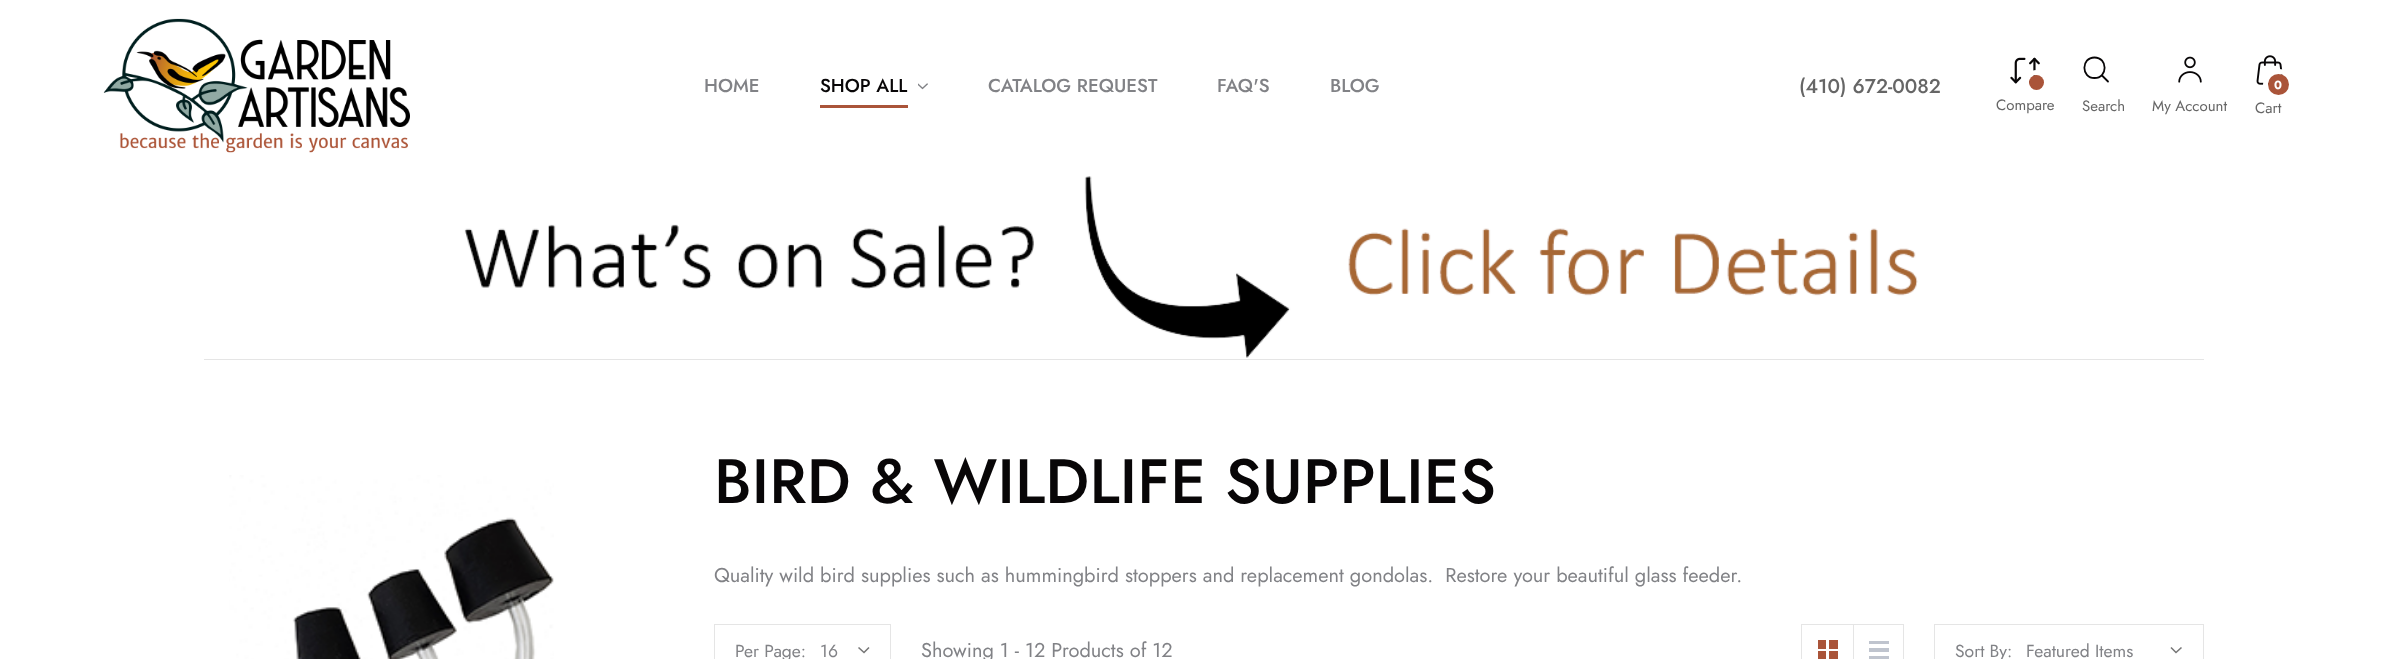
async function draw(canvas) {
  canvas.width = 2407
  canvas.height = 659
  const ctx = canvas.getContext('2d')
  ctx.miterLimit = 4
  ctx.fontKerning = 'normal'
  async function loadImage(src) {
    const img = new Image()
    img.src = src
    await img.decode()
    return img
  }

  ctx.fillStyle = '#fff'
  ctx.fillRect(0, 0, 2407, 659)
  ctx.drawImage(await loadImage('image0.png'), 103, 18, 307, 135)
  ctx.font = '500 18.75px Jost'
  ctx.fillStyle = '#818286'
  ctx.fillText('HOME', 704, 92)
  ctx.fillStyle = '#080607'
  ctx.fillText('SHOP ALL', 820, 92)
  ctx.fillStyle = '#aa5439'
  ctx.fillRect(820, 105, 88, 3)
  ctx.drawImage(await loadImage('image1.png'), 918, 83, 10, 7)
  ctx.fillStyle = '#818286'
  ctx.fillText('CATALOG REQUEST', 988, 92)
  ctx.fillText('FAQ\'S', 1217, 92)
  ctx.fillText('BLOG', 1330, 92)
  ctx.font = '500 20px Jost'
  ctx.fillStyle = '#666'
  ctx.fillText('(410) 672-0082', 1799, 93)
  ctx.drawImage(await loadImage('image2.png'), 2010, 57, 30, 27)
  ctx.beginPath()
  ctx.arc(2036.5, 82.5, 10, 0, 2 * Math.PI)
  ctx.strokeStyle = '#fff'
  ctx.lineWidth = 5
  ctx.stroke()
  ctx.fillStyle = '#aa5439'
  ctx.beginPath()
  ctx.arc(2036.5, 82.5, 7.5, 0, 2 * Math.PI)
  ctx.fill()
  ctx.font = '15px Jost'
  ctx.fillStyle = '#666'
  ctx.fillText('Compare', 1996, 110)
  ctx.beginPath()
  ctx.moveTo(2094.5, 78)
  ctx.bezierCurveTo(2108, 78, 2108, 57.5, 2094.5, 57.5)
  ctx.bezierCurveTo(2081, 57.5, 2081, 78, 2094.5, 78)
  ctx.closePath()
  ctx.moveTo(2108, 81.5)
  ctx.lineTo(2102, 75.5)
  ctx.strokeStyle = '#080607'
  ctx.lineWidth = 1.8
  ctx.lineCap = 'round'
  ctx.lineJoin = 'round'
  ctx.stroke()
  ctx.fillText('Search', 2082, 111)
  ctx.drawImage(await loadImage('image3.png'), 2178, 56, 24, 27)
  ctx.fillText('My Account', 2152, 111)
  ctx.drawImage(await loadImage('image4.png'), 2256, 55, 27, 30)
  ctx.beginPath()
  ctx.arc(2278.5, 84.5, 13, 0, 2 * Math.PI)
  ctx.strokeStyle = '#fff'
  ctx.lineWidth = 5
  ctx.stroke()
  ctx.fillStyle = '#aa5439'
  ctx.beginPath()
  ctx.arc(2278.5, 84.5, 10.5, 0, 2 * Math.PI)
  ctx.fill()
  ctx.font = 'bold 12px Jost'
  ctx.fillStyle = '#fff'
  ctx.fillText('0', 2274, 89)
  ctx.font = '15px Jost'
  ctx.fillStyle = '#666'
  ctx.fillText('Cart', 2255, 113)
  ctx.drawImage(await loadImage('image5.png'), 464, 176, 1454, 182)
  ctx.fillStyle = '#e5e5e5'
  ctx.fillRect(204, 359, 2000, 1)
  ctx.drawImage(await loadImage('image6.png'), 229, 475, 325, 184)
  ctx.letterSpacing = '0.3px'
  ctx.font = '500 62.5px Jost'
  ctx.fillStyle = '#080607'
  ctx.fillText('BIRD & WILDLIFE SUPPLIES', 714, 503)
  ctx.letterSpacing = '0px'
  ctx.font = '20px Jost'
  ctx.fillStyle = '#818286'
  ctx.fillText('Quality wild bird supplies such as hummingbird stoppers and replacement gondolas.  Restore your beautiful glass feeder.', 714, 582)
  ctx.strokeStyle = '#e5e5e5'
  ctx.lineWidth = 1
  ctx.lineJoin = 'miter'
  ctx.strokeRect(714.5, 624.5, 176, 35)
  ctx.font = '17.5px Jost'
  ctx.fillText('Per Page:', 735, 657)
  ctx.beginPath()
  ctx.moveTo(869, 647.5)
  ctx.lineTo(864, 652.5)
  ctx.lineTo(858.5, 647.5)
  ctx.strokeStyle = '#777'
  ctx.lineWidth = 1.6
  ctx.lineCap = 'butt'
  ctx.stroke()
  ctx.fillText('16', 820, 657)
  ctx.font = '20px Jost'
  ctx.fillText('Showing 1 - 12 Products of 12', 921, 657)
  ctx.strokeStyle = '#e5e5e5'
  ctx.lineWidth = 1
  ctx.strokeRect(1801.5, 624.5, 102, 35)
  ctx.fillStyle = '#aa5439'
  ctx.fillRect(1818, 640, 8, 9)
  ctx.fillRect(1829, 640, 9, 9)
  ctx.fillRect(1818, 651, 8, 8)
  ctx.fillRect(1829, 651, 9, 8)
  ctx.fillStyle = '#e5e5e5'
  ctx.fillRect(1853, 625, 1, 34)
  ctx.fillStyle = '#bfc4ce'
  ctx.fillRect(1869, 641, 20, 3)
  ctx.fillRect(1869, 648, 20, 4)
  ctx.fillRect(1869, 656, 20, 3)
  ctx.strokeRect(1934.5, 624.5, 269, 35)
  ctx.font = '17.5px Jost'
  ctx.fillStyle = '#818286'
  ctx.fillText('Sort By:', 1955, 657)
  ctx.beginPath()
  ctx.moveTo(2181.5, 647.5)
  ctx.lineTo(2176, 652.5)
  ctx.lineTo(2171, 647.5)
  ctx.strokeStyle = '#777'
  ctx.lineWidth = 1.6
  ctx.stroke()
  ctx.fillText('Featured Items', 2026, 657)
}

draw(document.querySelector('canvas'))
